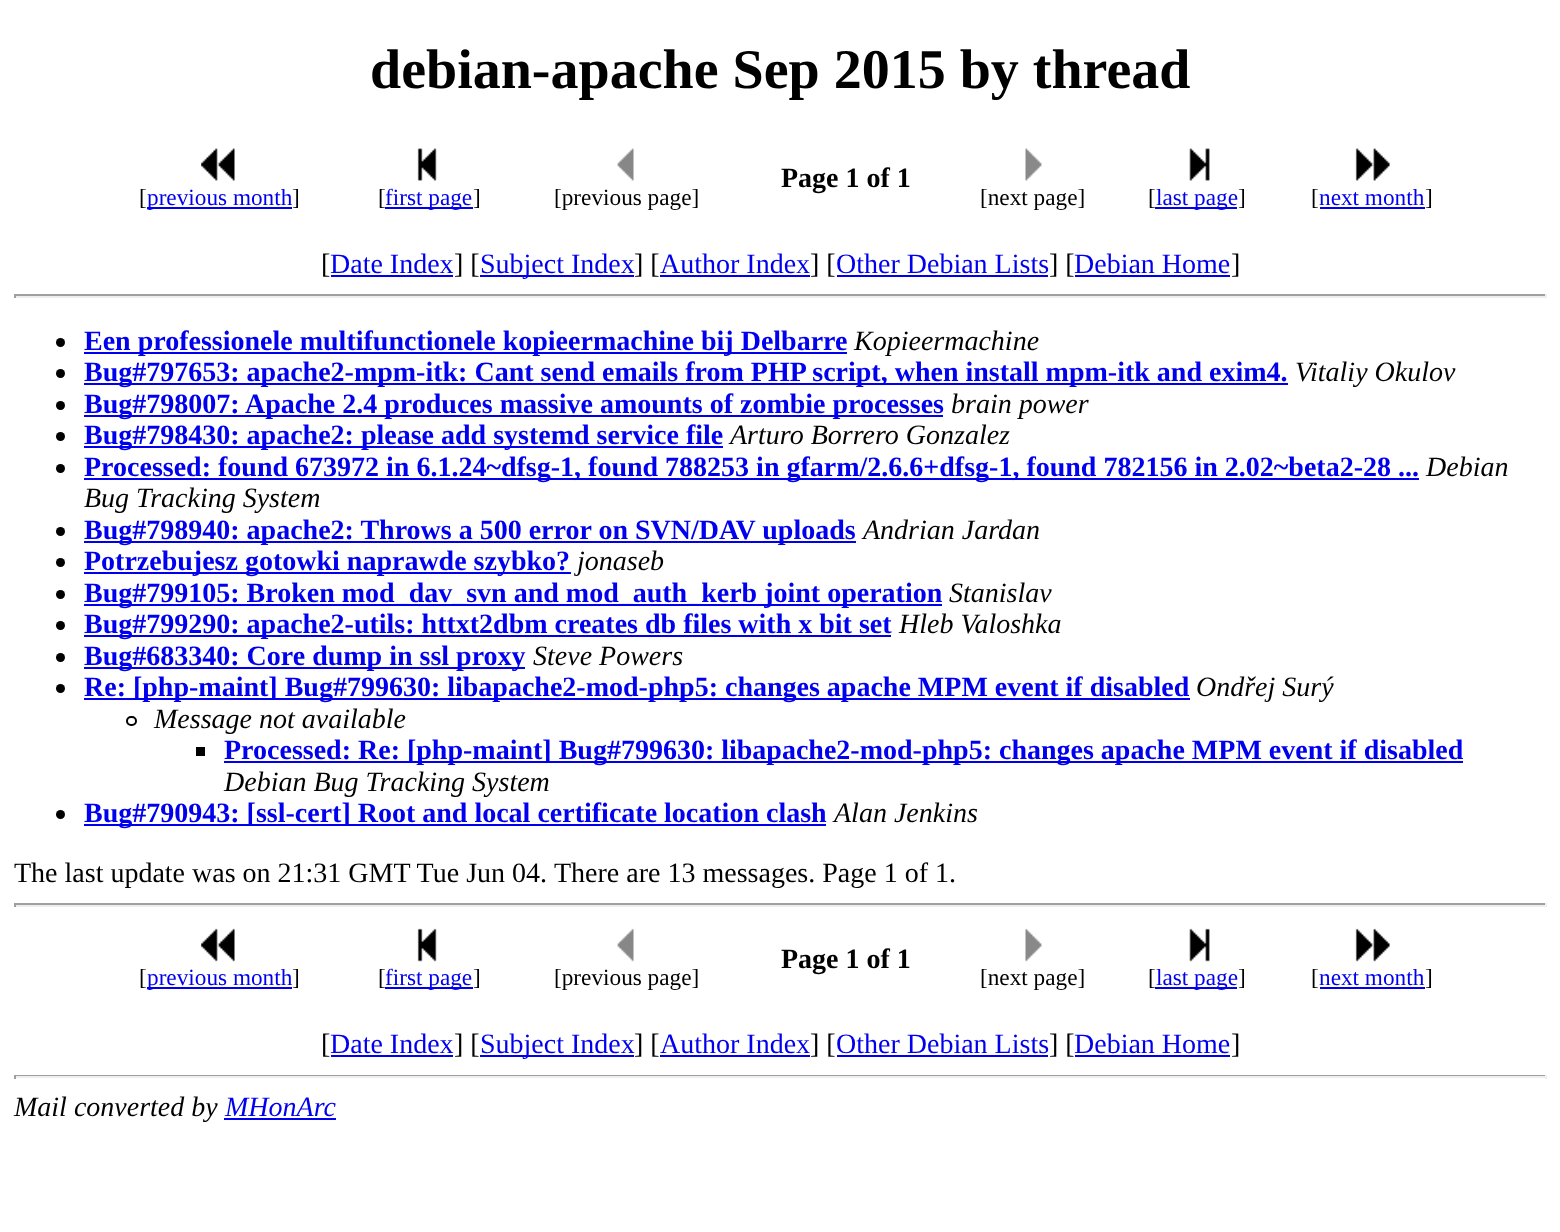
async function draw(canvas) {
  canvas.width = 1560
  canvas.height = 1232
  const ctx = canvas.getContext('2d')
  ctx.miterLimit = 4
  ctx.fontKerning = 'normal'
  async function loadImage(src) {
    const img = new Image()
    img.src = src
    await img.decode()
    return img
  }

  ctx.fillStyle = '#fff'
  ctx.fillRect(0, 0, 1560, 1232)
  ctx.font = 'bold 56px Liberation Serif'
  ctx.fillStyle = '#000'
  ctx.fillText('debian-apache Sep 2015 by thread', 370, 88)
  ctx.font = 'bold 28px Liberation Serif'
  ctx.fillText('Page 1 of 1', 781, 187)
  ctx.drawImage(await loadImage('image0.png'), 201, 148, 34, 33)
  ctx.font = '23.25px Liberation Serif'
  ctx.fillText('[', 139, 205)
  ctx.fillStyle = '#00e'
  ctx.fillRect(147, 207, 145, 2)
  ctx.fillText('previous month', 147, 205)
  ctx.fillStyle = '#000'
  ctx.fillText(']', 292, 205)
  ctx.drawImage(await loadImage('image1.png'), 417, 148, 20, 33)
  ctx.fillText('[', 378, 205)
  ctx.fillStyle = '#00e'
  ctx.fillRect(385, 207, 88, 2)
  ctx.fillText('first page', 385, 205)
  ctx.fillStyle = '#000'
  ctx.fillText(']', 473, 205)
  ctx.drawImage(await loadImage('image2.png'), 617, 148, 17, 33)
  ctx.fillText('[previous page]', 554, 205)
  ctx.drawImage(await loadImage('image3.png'), 1025, 148, 17, 33)
  ctx.fillText('[next page]', 980, 205)
  ctx.drawImage(await loadImage('image4.png'), 1189, 148, 21, 33)
  ctx.fillText('[', 1148, 205)
  ctx.fillStyle = '#00e'
  ctx.fillRect(1155, 207, 82, 2)
  ctx.fillText('last page', 1156, 205)
  ctx.fillStyle = '#000'
  ctx.fillText(']', 1238, 205)
  ctx.drawImage(await loadImage('image5.png'), 1355, 148, 35, 33)
  ctx.fillText('[', 1311, 205)
  ctx.fillStyle = '#00e'
  ctx.fillText('next month', 1319, 205)
  ctx.fillStyle = '#000'
  ctx.fillText(']', 1425, 205)
  ctx.fillStyle = '#00e'
  ctx.fillRect(1320, 207, 105, 2)
  ctx.font = '28px Liberation Serif'
  ctx.fillStyle = '#000'
  ctx.fillText('[', 321, 273)
  ctx.fillStyle = '#00e'
  ctx.fillText('Date Index', 330, 273)
  ctx.fillRect(331, 275, 122, 2)
  ctx.fillStyle = '#000'
  ctx.fillText('] [', 454, 273)
  ctx.fillStyle = '#00e'
  ctx.fillRect(480, 275, 154, 2)
  ctx.fillText('Subject Index', 480, 273)
  ctx.fillStyle = '#000'
  ctx.fillText('] [', 634, 273)
  ctx.fillStyle = '#00e'
  ctx.fillText('Author Index', 660, 273)
  ctx.fillRect(660, 275, 150, 2)
  ctx.fillStyle = '#000'
  ctx.fillText('] [', 810, 273)
  ctx.fillStyle = '#00e'
  ctx.fillText('Other Debian Lists', 836, 273)
  ctx.fillRect(837, 275, 211, 2)
  ctx.fillStyle = '#000'
  ctx.fillText('] [', 1049, 273)
  ctx.fillStyle = '#00e'
  ctx.fillText('Debian Home', 1074, 273)
  ctx.fillRect(1075, 275, 155, 2)
  ctx.fillStyle = '#000'
  ctx.fillText(']', 1231, 273)
  ctx.fillStyle = '#9f9f9f'
  ctx.fillRect(14, 294, 1533, 2)
  ctx.fillStyle = '#eee'
  ctx.fillRect(1545, 294, 2, 4)
  ctx.fillRect(14, 296, 1533, 2)
  ctx.fillStyle = '#9f9f9f'
  ctx.fillRect(14, 294, 2, 4)
  ctx.fillStyle = '#000'
  ctx.beginPath()
  ctx.arc(60.5, 342.5, 4.5, 0, 2 * Math.PI)
  ctx.fill()
  ctx.fillStyle = '#00e'
  ctx.fillRect(84, 352, 763, 2)
  ctx.font = 'bold 28px Liberation Serif'
  ctx.fillText('Een professionele multifunctionele kopieermachine bij Delbarre', 84, 350)
  ctx.font = 'italic 28px Liberation Serif'
  ctx.fillStyle = '#000'
  ctx.fillText('Kopieermachine', 854, 350)
  ctx.beginPath()
  ctx.arc(60.5, 373.5, 4.5, 0, 2 * Math.PI)
  ctx.fill()
  ctx.fillStyle = '#00e'
  ctx.fillRect(84, 383, 1204, 2)
  ctx.font = 'bold 28px Liberation Serif'
  ctx.fillText('Bug#797653: apache2-mpm-itk: Cant send emails from PHP script, when install mpm-itk and exim4.', 84, 381)
  ctx.font = 'italic 28px Liberation Serif'
  ctx.fillStyle = '#000'
  ctx.fillText('Vitaliy Okulov', 1295, 381)
  ctx.beginPath()
  ctx.arc(60.5, 405.5, 4.5, 0, 2 * Math.PI)
  ctx.fill()
  ctx.fillStyle = '#00e'
  ctx.fillRect(84, 415, 859, 2)
  ctx.font = 'bold 28px Liberation Serif'
  ctx.fillText('Bug#798007: Apache 2.4 produces massive amounts of zombie processes', 84, 413)
  ctx.font = 'italic 28px Liberation Serif'
  ctx.fillStyle = '#000'
  ctx.fillText('brain power', 951, 413)
  ctx.beginPath()
  ctx.arc(60.5, 436.5, 4.5, 0, 2 * Math.PI)
  ctx.fill()
  ctx.fillStyle = '#00e'
  ctx.fillRect(84, 446, 639, 2)
  ctx.font = 'bold 28px Liberation Serif'
  ctx.fillText('Bug#798430: apache2: please add systemd service file', 84, 444)
  ctx.font = 'italic 28px Liberation Serif'
  ctx.fillStyle = '#000'
  ctx.fillText('Arturo Borrero Gonzalez', 730, 444)
  ctx.beginPath()
  ctx.arc(60.5, 468.5, 4.5, 0, 2 * Math.PI)
  ctx.fill()
  ctx.fillStyle = '#00e'
  ctx.fillRect(84, 478, 1335, 2)
  ctx.font = 'bold 28px Liberation Serif'
  ctx.fillText('Processed: found 673972 in 6.1.24~dfsg-1, found 788253 in gfarm/2.6.6+dfsg-1, found 782156 in 2.02~beta2-28 ...', 84, 476)
  ctx.font = 'italic 28px Liberation Serif'
  ctx.fillStyle = '#000'
  ctx.fillText('Debian', 1426, 476)
  ctx.fillText('Bug Tracking System', 84, 507)
  ctx.beginPath()
  ctx.arc(60.5, 531.5, 4.5, 0, 2 * Math.PI)
  ctx.fill()
  ctx.fillStyle = '#00e'
  ctx.fillRect(84, 541, 772, 2)
  ctx.font = 'bold 28px Liberation Serif'
  ctx.fillText('Bug#798940: apache2: Throws a 500 error on SVN/DAV uploads', 84, 539)
  ctx.font = 'italic 28px Liberation Serif'
  ctx.fillStyle = '#000'
  ctx.fillText('Andrian Jardan', 863, 539)
  ctx.beginPath()
  ctx.arc(60.5, 562.5, 4.5, 0, 2 * Math.PI)
  ctx.fill()
  ctx.fillStyle = '#00e'
  ctx.fillRect(84, 572, 487, 2)
  ctx.font = 'bold 28px Liberation Serif'
  ctx.fillText('Potrzebujesz gotowki naprawde szybko?', 84, 570)
  ctx.font = 'italic 28px Liberation Serif'
  ctx.fillStyle = '#000'
  ctx.fillText('jonaseb', 577, 570)
  ctx.beginPath()
  ctx.arc(60.5, 594.5, 4.5, 0, 2 * Math.PI)
  ctx.fill()
  ctx.fillStyle = '#00e'
  ctx.fillRect(84, 604, 858, 2)
  ctx.font = 'bold 28px Liberation Serif'
  ctx.fillText('Bug#799105: Broken mod_dav_svn and mod_auth_kerb joint operation', 84, 602)
  ctx.font = 'italic 28px Liberation Serif'
  ctx.fillStyle = '#000'
  ctx.fillText('Stanislav', 949, 602)
  ctx.beginPath()
  ctx.arc(60.5, 625.5, 4.5, 0, 2 * Math.PI)
  ctx.fill()
  ctx.fillStyle = '#00e'
  ctx.fillRect(84, 635, 807, 2)
  ctx.font = 'bold 28px Liberation Serif'
  ctx.fillText('Bug#799290: apache2-utils: httxt2dbm creates db files with x bit set', 84, 633)
  ctx.font = 'italic 28px Liberation Serif'
  ctx.fillStyle = '#000'
  ctx.fillText('Hleb Valoshka', 899, 633)
  ctx.beginPath()
  ctx.arc(60.5, 657.5, 4.5, 0, 2 * Math.PI)
  ctx.fill()
  ctx.fillStyle = '#00e'
  ctx.fillRect(84, 667, 441, 2)
  ctx.font = 'bold 28px Liberation Serif'
  ctx.fillText('Bug#683340: Core dump in ssl proxy', 84, 665)
  ctx.font = 'italic 28px Liberation Serif'
  ctx.fillStyle = '#000'
  ctx.fillText('Steve Powers', 533, 665)
  ctx.beginPath()
  ctx.arc(60.5, 688.5, 4.5, 0, 2 * Math.PI)
  ctx.fill()
  ctx.fillStyle = '#00e'
  ctx.fillRect(84, 698, 1106, 2)
  ctx.font = 'bold 28px Liberation Serif'
  ctx.fillText('Re: [php-maint] Bug#799630: libapache2-mod-php5: changes apache MPM event if disabled', 84, 696)
  ctx.font = 'italic 28px Liberation Serif'
  ctx.fillStyle = '#000'
  ctx.fillText('Ondřej Surý', 1196, 696)
  ctx.beginPath()
  ctx.roundRect(127, 717, 9, 8, 4)
  ctx.strokeStyle = '#000'
  ctx.lineWidth = 2
  ctx.stroke()
  ctx.fillText('Message not available', 154, 728)
  ctx.fillRect(196, 747, 9, 9)
  ctx.fillStyle = '#00e'
  ctx.fillRect(224, 761, 1239, 2)
  ctx.font = 'bold 28px Liberation Serif'
  ctx.fillText('Processed: Re: [php-maint] Bug#799630: libapache2-mod-php5: changes apache MPM event if disabled', 224, 759)
  ctx.font = 'italic 28px Liberation Serif'
  ctx.fillStyle = '#000'
  ctx.fillText('Debian Bug Tracking System', 224, 791)
  ctx.beginPath()
  ctx.arc(60.5, 814.5, 4.5, 0, 2 * Math.PI)
  ctx.fill()
  ctx.fillStyle = '#00e'
  ctx.fillRect(84, 824, 742, 2)
  ctx.font = 'bold 28px Liberation Serif'
  ctx.fillText('Bug#790943: [ssl-cert] Root and local certificate location clash', 84, 822)
  ctx.font = 'italic 28px Liberation Serif'
  ctx.fillStyle = '#000'
  ctx.fillText('Alan Jenkins', 834, 822)
  ctx.font = '28px Liberation Serif'
  ctx.fillText('The last update was on 21:31 GMT Tue Jun 04.', 14, 882)
  ctx.fillText('There are 13 messages. Page 1 of 1.', 554, 882)
  ctx.fillStyle = '#9f9f9f'
  ctx.fillRect(14, 903, 1533, 2)
  ctx.fillStyle = '#eee'
  ctx.fillRect(1545, 903, 2, 4)
  ctx.fillRect(14, 905, 1533, 2)
  ctx.fillStyle = '#9f9f9f'
  ctx.fillRect(14, 903, 2, 4)
  ctx.font = 'bold 28px Liberation Serif'
  ctx.fillStyle = '#000'
  ctx.fillText('Page 1 of 1', 781, 968)
  ctx.drawImage(await loadImage('image6.png'), 201, 928, 34, 34)
  ctx.font = '23.25px Liberation Serif'
  ctx.fillText('[', 139, 985)
  ctx.fillStyle = '#00e'
  ctx.fillRect(147, 987, 145, 2)
  ctx.fillText('previous month', 147, 985)
  ctx.fillStyle = '#000'
  ctx.fillText(']', 292, 985)
  ctx.drawImage(await loadImage('image7.png'), 417, 928, 20, 34)
  ctx.fillText('[', 378, 985)
  ctx.fillStyle = '#00e'
  ctx.fillRect(385, 987, 88, 2)
  ctx.fillText('first page', 385, 985)
  ctx.fillStyle = '#000'
  ctx.fillText(']', 473, 985)
  ctx.drawImage(await loadImage('image8.png'), 617, 928, 17, 34)
  ctx.fillText('[previous page]', 554, 985)
  ctx.drawImage(await loadImage('image9.png'), 1025, 928, 17, 34)
  ctx.fillText('[next page]', 980, 985)
  ctx.drawImage(await loadImage('image10.png'), 1189, 928, 21, 34)
  ctx.fillText('[', 1148, 985)
  ctx.fillStyle = '#00e'
  ctx.fillRect(1155, 987, 82, 2)
  ctx.fillText('last page', 1156, 985)
  ctx.fillStyle = '#000'
  ctx.fillText(']', 1238, 985)
  ctx.drawImage(await loadImage('image11.png'), 1355, 928, 35, 34)
  ctx.fillText('[', 1311, 985)
  ctx.fillStyle = '#00e'
  ctx.fillText('next month', 1319, 985)
  ctx.fillStyle = '#000'
  ctx.fillText(']', 1425, 985)
  ctx.fillStyle = '#00e'
  ctx.fillRect(1320, 987, 105, 2)
  ctx.font = '28px Liberation Serif'
  ctx.fillStyle = '#000'
  ctx.fillText('[', 321, 1053)
  ctx.fillStyle = '#00e'
  ctx.fillText('Date Index', 330, 1053)
  ctx.fillRect(331, 1055, 122, 2)
  ctx.fillStyle = '#000'
  ctx.fillText('] [', 454, 1053)
  ctx.fillStyle = '#00e'
  ctx.fillRect(480, 1055, 154, 2)
  ctx.fillText('Subject Index', 480, 1053)
  ctx.fillStyle = '#000'
  ctx.fillText('] [', 634, 1053)
  ctx.fillStyle = '#00e'
  ctx.fillText('Author Index', 660, 1053)
  ctx.fillRect(660, 1055, 150, 2)
  ctx.fillStyle = '#000'
  ctx.fillText('] [', 810, 1053)
  ctx.fillStyle = '#00e'
  ctx.fillText('Other Debian Lists', 836, 1053)
  ctx.fillRect(837, 1055, 211, 2)
  ctx.fillStyle = '#000'
  ctx.fillText('] [', 1049, 1053)
  ctx.fillStyle = '#00e'
  ctx.fillText('Debian Home', 1074, 1053)
  ctx.fillRect(1075, 1055, 155, 2)
  ctx.fillStyle = '#000'
  ctx.fillText(']', 1231, 1053)
  ctx.fillStyle = '#9f9f9f'
  ctx.fillRect(14, 1075, 1533, 1)
  ctx.fillStyle = '#eee'
  ctx.fillRect(1545, 1075, 2, 4)
  ctx.fillRect(14, 1076, 1533, 2)
  ctx.fillStyle = '#9f9f9f'
  ctx.fillRect(14, 1075, 2, 4)
  ctx.font = 'italic 28px Liberation Serif'
  ctx.fillStyle = '#000'
  ctx.fillText('Mail converted by', 14, 1116)
  ctx.fillStyle = '#00e'
  ctx.fillText('MHonArc', 225, 1116)
  ctx.fillRect(224, 1118, 112, 2)
}

draw(document.querySelector('canvas'))
